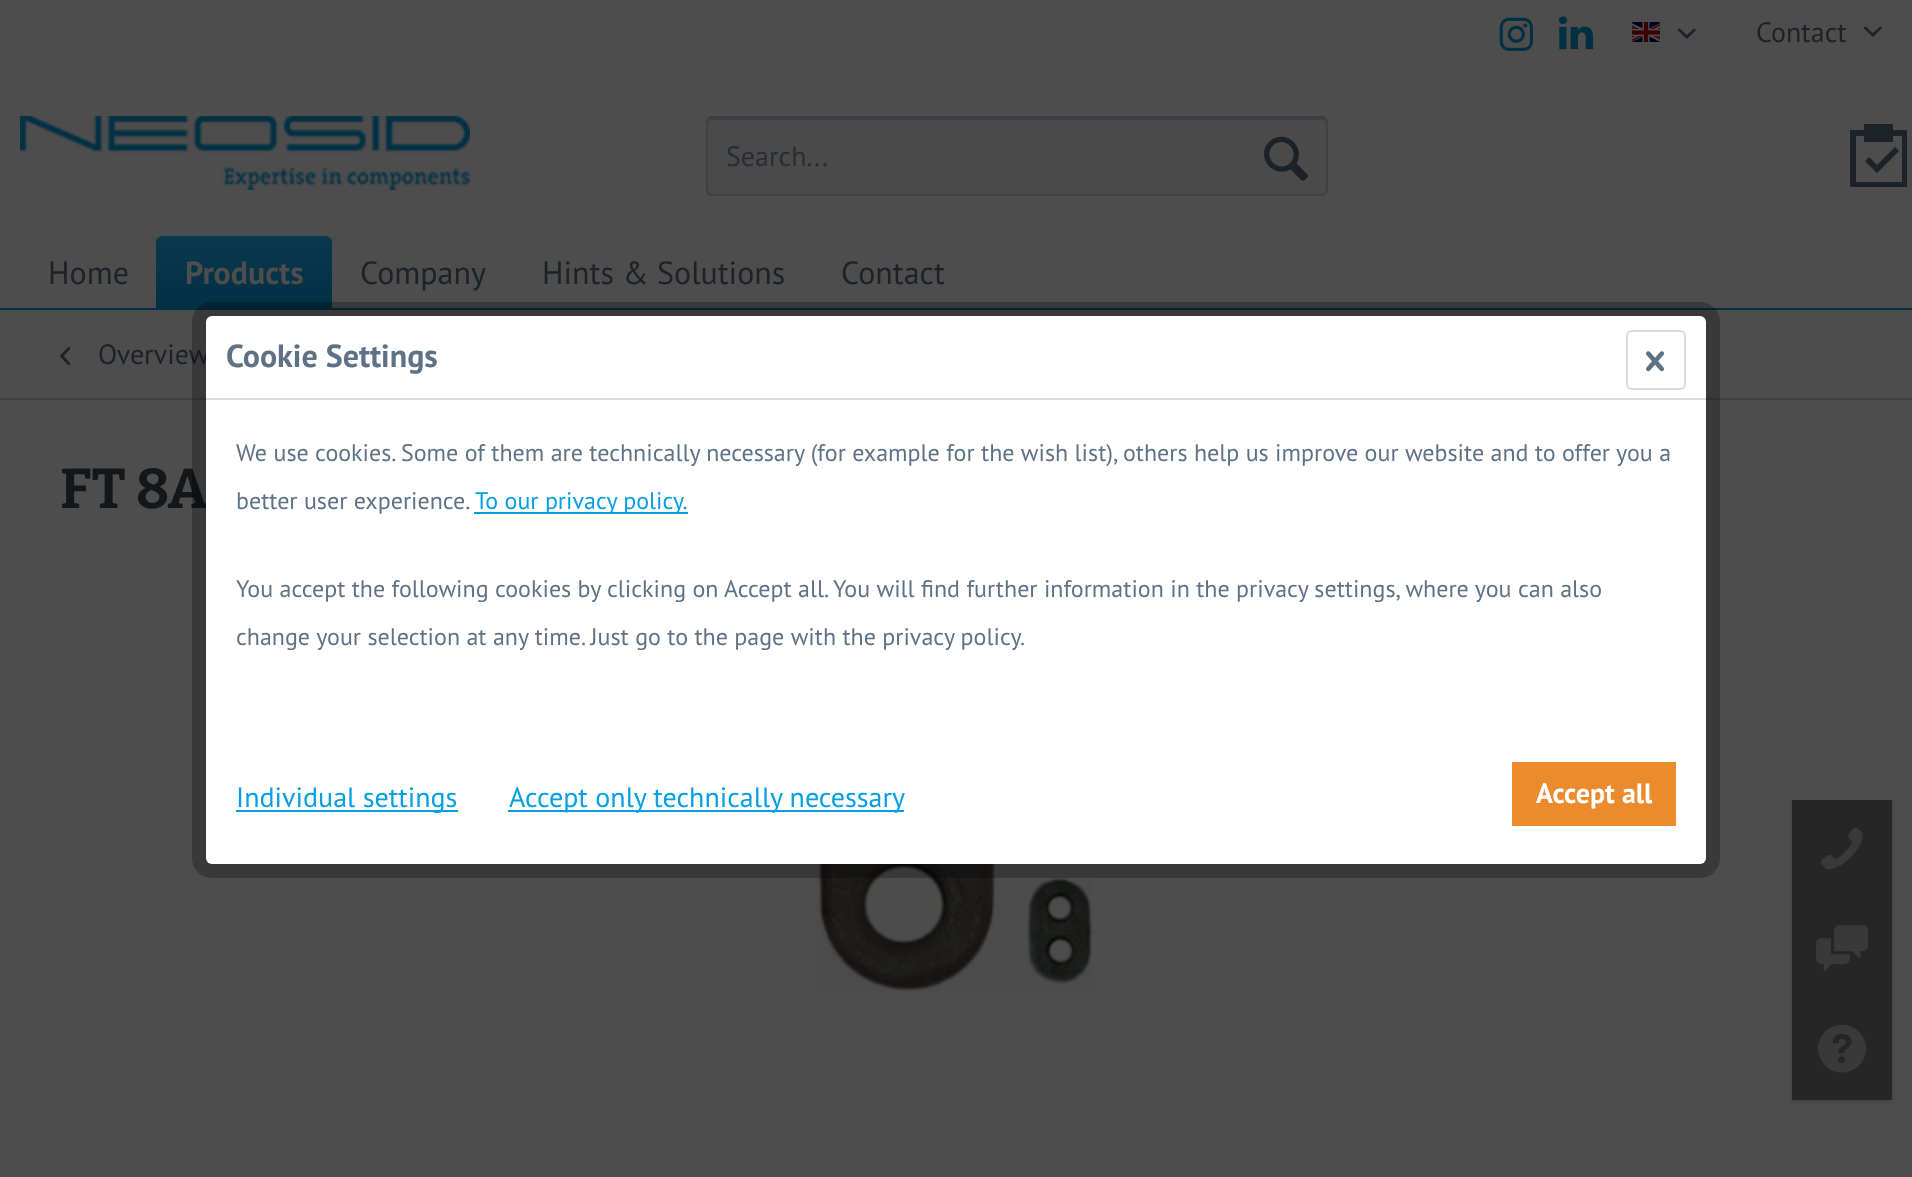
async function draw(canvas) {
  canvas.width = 1912
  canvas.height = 1177
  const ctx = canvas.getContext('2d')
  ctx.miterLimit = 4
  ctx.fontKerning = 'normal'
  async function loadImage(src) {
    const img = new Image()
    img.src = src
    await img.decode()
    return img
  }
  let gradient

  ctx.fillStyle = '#4d4d4d'
  ctx.fillRect(0, 0, 1912, 1177)
  ctx.drawImage(await loadImage('image0.png'), 1499, 17, 34, 34)
  ctx.drawImage(await loadImage('image1.png'), 1558, 16, 36, 34)
  ctx.drawImage(await loadImage('image2.png'), 1632, 22, 28, 20)
  ctx.drawImage(await loadImage('image3.png'), 1678, 28, 18, 11)
  ctx.font = '28px PT Sans'
  ctx.fillStyle = '#1d2228'
  ctx.fillText('Contact', 1756, 42)
  ctx.drawImage(await loadImage('image3.png'), 1864, 26, 18, 11)
  ctx.drawImage(await loadImage('image4.png'), 20, 116, 450, 74)
  ctx.fillStyle = '#4a4a4b'
  ctx.beginPath()
  ctx.roundRect(706, 116, 622, 80, 6)
  ctx.fill()
  ctx.fillStyle = '#414145'
  ctx.beginPath()
  ctx.moveTo(712, 120)
  ctx.lineTo(1322, 120)
  ctx.bezierCurveTo(1324, 120, 1326, 122, 1326, 124)
  ctx.bezierCurveTo(1326, 121, 1326, 118, 1322, 118)
  ctx.lineTo(710, 118)
  ctx.lineTo(709, 120)
  ctx.bezierCurveTo(708, 121, 708, 123, 708, 124)
  ctx.bezierCurveTo(708, 122, 710, 120, 712, 120)
  ctx.closePath()
  ctx.fill()
  ctx.beginPath()
  ctx.moveTo(708.5, 118.5)
  ctx.bezierCurveTo(709.5, 117.5, 710.5, 117, 712, 117)
  ctx.lineTo(1322, 117)
  ctx.bezierCurveTo(1323.5, 117, 1324.5, 117.5, 1325.5, 118.5)
  ctx.strokeStyle = '#3d3d42'
  ctx.lineWidth = 2
  ctx.stroke()
  ctx.beginPath()
  ctx.moveTo(1325.5, 118.5)
  ctx.bezierCurveTo(1326.5, 119.5, 1327, 120.5, 1327, 122)
  ctx.lineTo(1327, 190)
  ctx.bezierCurveTo(1327, 191.5, 1326.5, 192.5, 1325.5, 193.5)
  ctx.bezierCurveTo(1324.5, 194.5, 1323.5, 195, 1322, 195)
  ctx.lineTo(712, 195)
  ctx.bezierCurveTo(710.5, 195, 709.5, 194.5, 708.5, 193.5)
  ctx.bezierCurveTo(707.5, 192.5, 707, 191.5, 707, 190)
  ctx.lineTo(707, 122)
  ctx.bezierCurveTo(707, 120.5, 707.5, 119.5, 708.5, 118.5)
  ctx.strokeStyle = '#414145'
  ctx.stroke()
  ctx.fillStyle = '#292e33'
  ctx.fillText('Search...', 726, 166)
  ctx.drawImage(await loadImage('image5.png'), 1264, 136, 44, 45)
  ctx.fillStyle = '#1d2228'
  ctx.beginPath()
  ctx.moveTo(1893, 130)
  ctx.lineTo(1893, 124)
  ctx.lineTo(1864, 124)
  ctx.lineTo(1864, 130)
  ctx.lineTo(1850, 130)
  ctx.lineTo(1850, 187)
  ctx.lineTo(1907, 187)
  ctx.lineTo(1907, 130)
  ctx.closePath()
  ctx.moveTo(1902, 182)
  ctx.lineTo(1856, 182)
  ctx.lineTo(1856, 136)
  ctx.lineTo(1864, 136)
  ctx.lineTo(1864, 142)
  ctx.lineTo(1893, 142)
  ctx.lineTo(1893, 136)
  ctx.lineTo(1902, 136)
  ctx.closePath()
  ctx.moveTo(1869, 157)
  ctx.lineTo(1865, 161)
  ctx.lineTo(1877, 173)
  ctx.lineTo(1899, 151)
  ctx.lineTo(1895, 147)
  ctx.lineTo(1877, 165)
  ctx.closePath()
  ctx.fill()
  ctx.fillStyle = '#013044'
  ctx.fillRect(0, 308, 1912, 2)
  ctx.font = '32px PT Sans'
  ctx.fillStyle = '#1d2228'
  ctx.fillText('Home', 48, 284)
  gradient = ctx.createLinearGradient(244, 236, 244, 308)
  gradient.addColorStop(0, '#0a394d')
  gradient.addColorStop(1, '#013044')
  ctx.fillStyle = gradient
  ctx.beginPath()
  ctx.roundRect(156, 236, 176, 72, [6, 6, 0, 0])
  ctx.fill()
  ctx.font = 'bold 32px PT Sans'
  ctx.fillStyle = '#4d4d4d'
  ctx.fillText('Products', 185, 284)
  ctx.font = '32px PT Sans'
  ctx.fillStyle = '#1d2228'
  ctx.fillText('Company', 360, 284)
  ctx.fillText('Hints & Solutions', 542, 284)
  ctx.fillText('Contact', 841, 284)
  ctx.fillStyle = '#414145'
  ctx.fillRect(0, 398, 1912, 2)
  ctx.drawImage(await loadImage('image6.png'), 60, 347, 11, 19)
  ctx.font = '28px PT Sans'
  ctx.fillStyle = '#1d2228'
  ctx.fillText('Overview', 98, 364)
  ctx.font = '100 56px Bitter'
  ctx.fillStyle = '#13171a'
  ctx.fillText('FT 8A', 60, 508)
  ctx.drawImage(await loadImage('image7.png'), 815, 864, 278, 129)
  ctx.beginPath()
  ctx.roundRect(199, 309, 1514, 562, 13)
  ctx.strokeStyle = '#00000040'
  ctx.lineWidth = 14
  ctx.stroke()
  ctx.fillStyle = '#fff'
  ctx.beginPath()
  ctx.roundRect(206, 316, 1500, 548, 6)
  ctx.fill()
  ctx.fillStyle = '#dadae5'
  ctx.fillRect(206, 398, 1500, 2)
  ctx.font = 'bold 32px PT Sans'
  ctx.fillStyle = '#5f7285'
  ctx.fillText('Cookie Settings', 226, 367)
  ctx.beginPath()
  ctx.roundRect(1627, 331, 58, 58, 5)
  ctx.strokeStyle = '#dadae5'
  ctx.lineWidth = 2
  ctx.stroke()
  ctx.drawImage(await loadImage('image8.png'), 1646, 351, 19, 21)
  ctx.font = '24px PT Sans'
  ctx.fillText('We use cookies. Some of them are technically necessary (for example for the wish list), others help us improve our website and to offer you a', 236, 461)
  ctx.fillText('better user experience.', 236, 509)
  ctx.fillStyle = '#029fe2'
  ctx.fillRect(474, 512, 214, 2)
  ctx.fillText('To our privacy policy.', 475, 509)
  ctx.fillStyle = '#5f7285'
  ctx.fillText('You accept the following cookies by clicking on Accept all. You will find further information in the privacy settings, where you can also', 236, 597)
  ctx.fillText('change your selection at any time. Just go to the page with the privacy policy.', 236, 645)
  ctx.fillStyle = '#029fe2'
  ctx.fillRect(236, 810, 222, 2)
  ctx.font = '28px PT Sans'
  ctx.fillText('Individual settings', 236, 807)
  ctx.fillRect(508, 810, 396, 2)
  ctx.fillText('Accept only technically necessary', 509, 807)
  ctx.fillStyle = '#eb8b2e'
  ctx.fillRect(1512, 762, 164, 64)
  ctx.font = 'bold 28px PT Sans'
  ctx.fillStyle = '#fff'
  ctx.fillText('Accept all', 1536, 803)
  ctx.fillStyle = '#00000026'
  ctx.filter = 'blur(2px)'
  ctx.beginPath()
  ctx.rect(1792, 802, 100, 300)
  ctx.fill()
  ctx.filter = 'none'
  ctx.fillStyle = '#262626'
  ctx.fillRect(1792, 800, 100, 300)
  ctx.drawImage(await loadImage('image9.png'), 1821, 827, 42, 43)
  ctx.drawImage(await loadImage('image10.png'), 1816, 925, 52, 47)
  ctx.drawImage(await loadImage('image11.png'), 1818, 1024, 48, 49)
}

draw(document.querySelector('canvas'))
